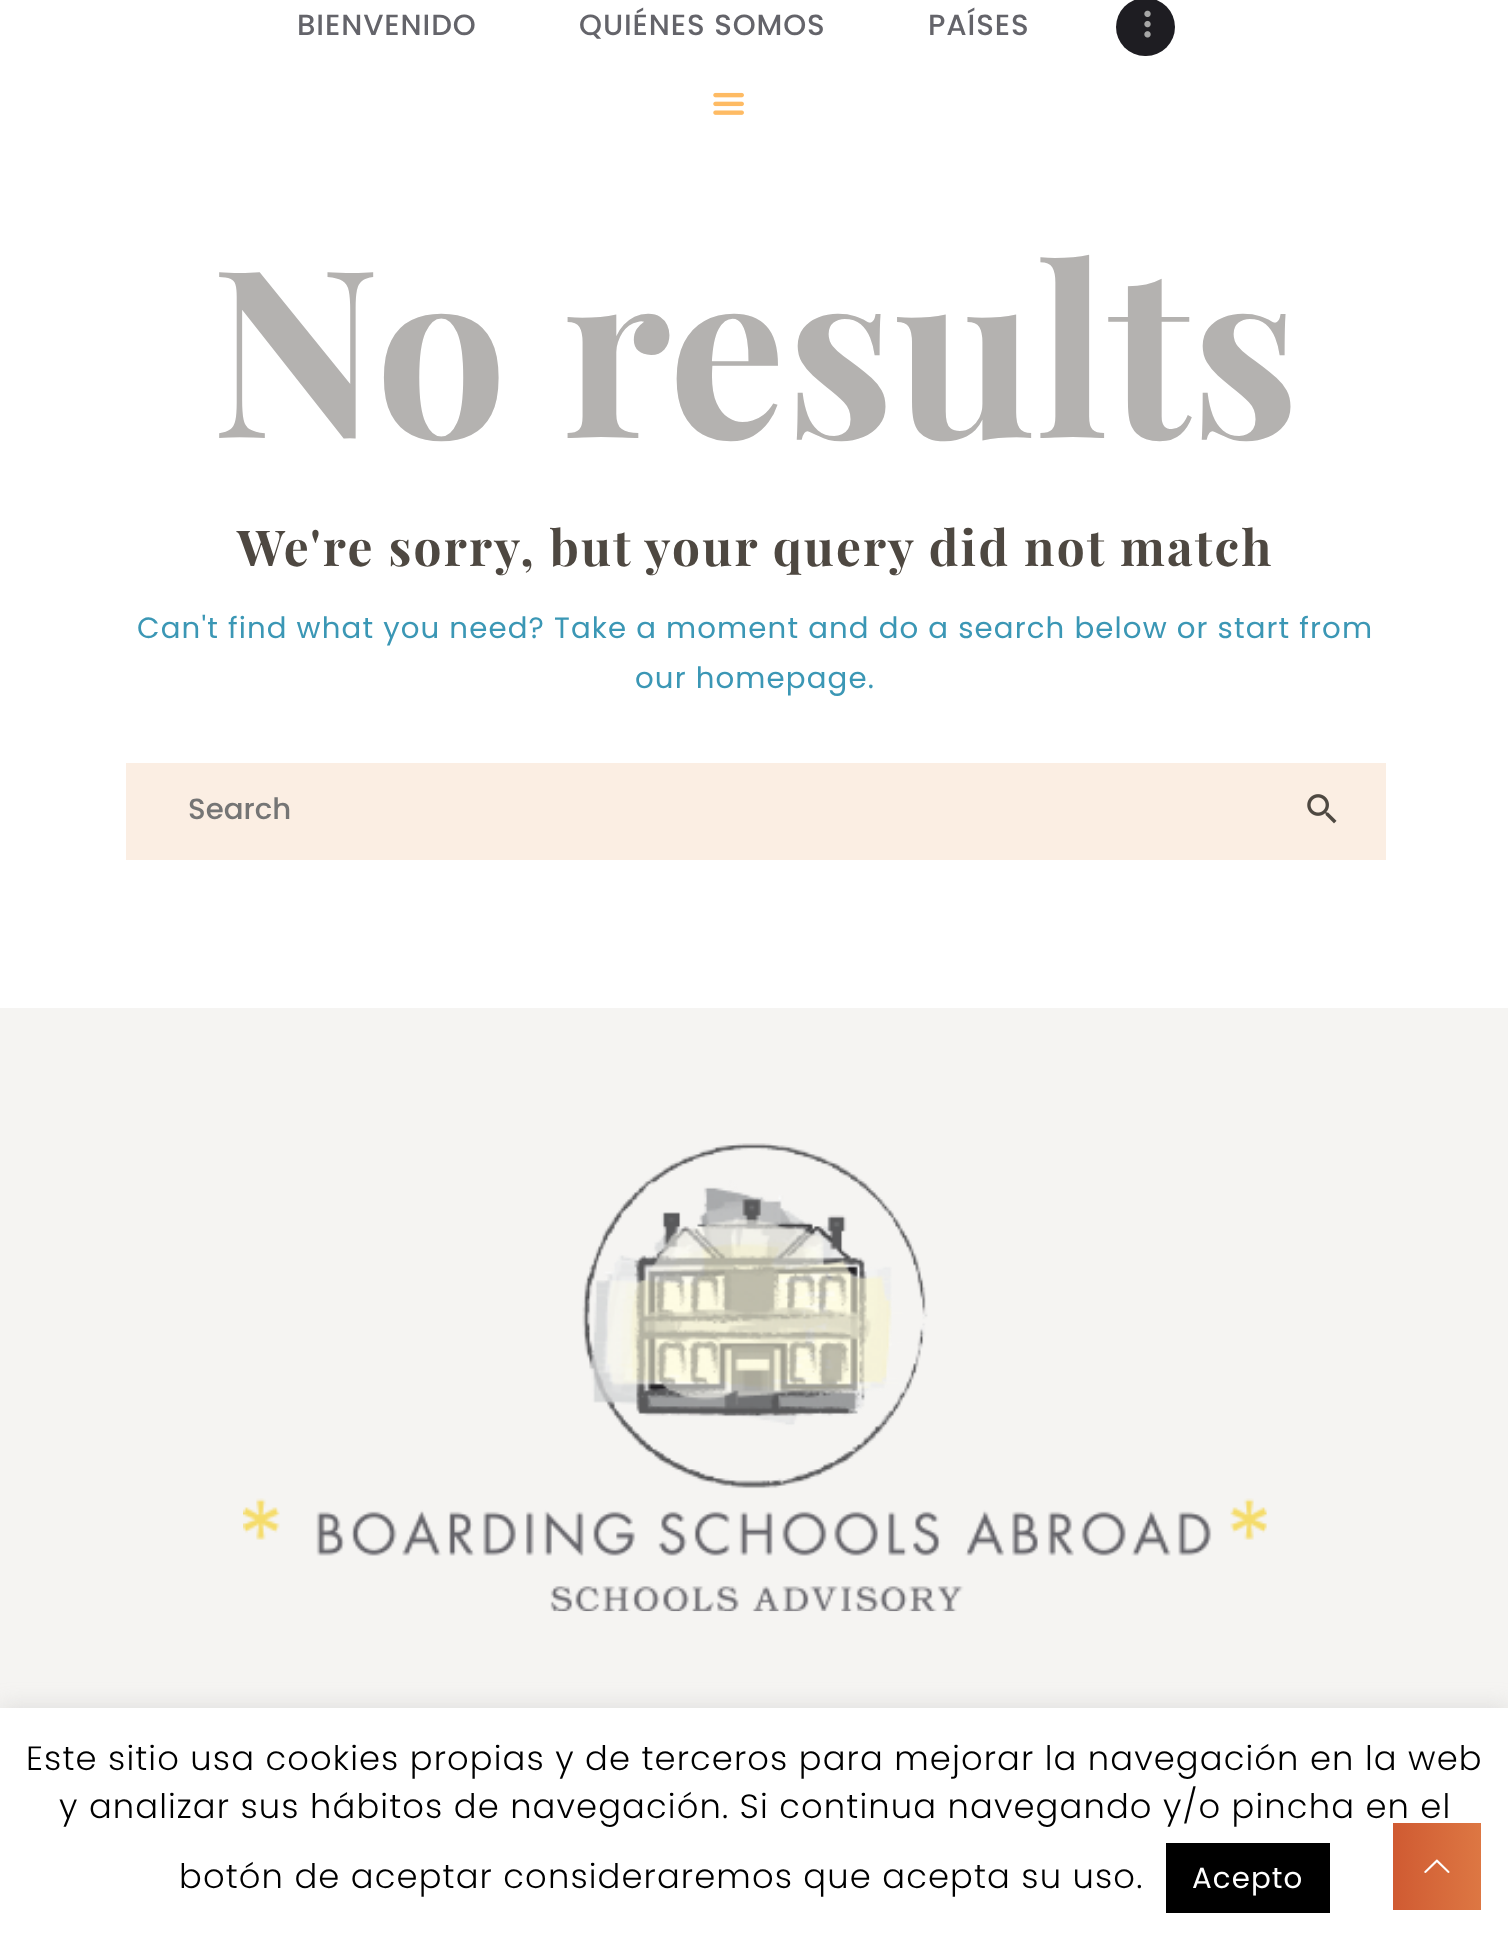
async function draw(canvas) {
  canvas.width = 1508
  canvas.height = 1939
  const ctx = canvas.getContext('2d')
  ctx.miterLimit = 4
  ctx.fontKerning = 'normal'
  async function loadImage(src) {
    const img = new Image()
    img.src = src
    await img.decode()
    return img
  }
  let gradient

  ctx.fillStyle = '#fff'
  ctx.fillRect(0, 0, 1508, 1939)
  ctx.letterSpacing = '0.9px'
  ctx.font = '500 29.25px Poppins'
  ctx.fillStyle = '#64646a'
  ctx.fillText('BIENVENIDO', 297, 35)
  ctx.fillText('QUIÉNES SOMOS', 579, 35)
  ctx.fillText('PAÍSES', 928, 35)
  ctx.fillStyle = '#1e1d22'
  ctx.beginPath()
  ctx.roundRect(1116, -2, 59, 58, 29)
  ctx.fill()
  ctx.drawImage(await loadImage('image0.png'), 1144, 10, 7, 28)
  ctx.drawImage(await loadImage('image1.png'), 713, 92, 31, 23)
  ctx.letterSpacing = '0px'
  ctx.font = 'bold 234px Playfair Display'
  ctx.fillStyle = '#b4b2b0'
  ctx.fillText('No results', 211, 438)
  ctx.letterSpacing = '2.25px'
  ctx.font = 'bold 49.5px Playfair Display'
  ctx.fillStyle = '#4e4841'
  ctx.fillText('We\'re sorry, but your query did not match', 237, 566)
  ctx.letterSpacing = '1.12px'
  ctx.font = '29.25px Poppins'
  ctx.fillStyle = '#3b97b5'
  ctx.fillText('Can\'t find what you need? Take a moment and do a search below or start from', 137, 638)
  ctx.fillText('our homepage.', 635, 688)
  ctx.fillStyle = '#fbeee3'
  ctx.fillRect(126, 763, 1260, 97)
  ctx.letterSpacing = '0px'
  ctx.font = '500 29.25px Poppins'
  ctx.fillStyle = '#757575'
  ctx.fillText('Search', 188, 819)
  ctx.drawImage(await loadImage('image2.png'), 1307, 794, 30, 30)
  ctx.fillStyle = '#f5f4f2'
  ctx.fillRect(0, 1008, 1508, 700)
  ctx.drawImage(await loadImage('image3.png'), 243, 1143, 1024, 469)
  ctx.fillStyle = '#acabab4d'
  ctx.filter = 'blur(11px)'
  ctx.beginPath()
  ctx.rect(0, 1706, 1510, 231)
  ctx.fill()
  ctx.filter = 'none'
  ctx.fillStyle = '#fff'
  ctx.fillRect(0, 1708, 1508, 231)
  ctx.letterSpacing = '1.12px'
  ctx.font = '300 33.75px Poppins'
  ctx.fillStyle = '#000'
  ctx.fillText('Este sitio usa cookies propias y de terceros para mejorar la navegación en la web', 26, 1770)
  ctx.fillText('y analizar sus hábitos de navegación. Si continua navegando y/o pincha en el', 59, 1818)
  ctx.fillText('botón de aceptar consideraremos que acepta su uso.', 179, 1888)
  ctx.fillRect(1166, 1843, 164, 70)
  ctx.font = '29.25px Poppins'
  ctx.fillStyle = '#fff'
  ctx.fillText('Acepto', 1192, 1888)
  gradient = ctx.createLinearGradient(1296, 1866, 1481, 1866)
  gradient.addColorStop(0, '#3797b8')
  gradient.addColorStop(0.5, '#73a2a0')
  gradient.addColorStop(0.5, '#cf5931')
  gradient.addColorStop(1, '#dd7743')
  ctx.fillStyle = gradient
  ctx.fillRect(1393, 1823, 88, 87)
  ctx.drawImage(await loadImage('image4.png'), 1424, 1859, 26, 14)
}

draw(document.querySelector('canvas'))
